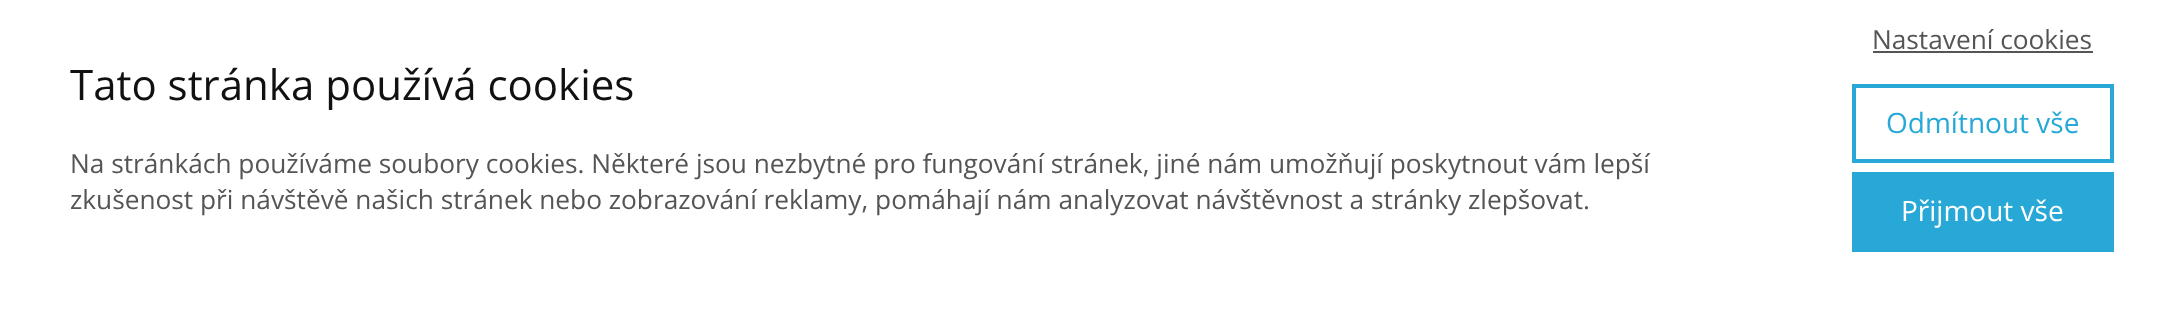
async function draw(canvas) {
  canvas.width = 2184
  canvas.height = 321
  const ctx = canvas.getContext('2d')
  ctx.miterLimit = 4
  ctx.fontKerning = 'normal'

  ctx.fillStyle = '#fff'
  ctx.fillRect(0, 0, 2184, 321)
  ctx.font = '42px Open Sans'
  ctx.fillStyle = '#111'
  ctx.fillText('Tato stránka používá cookies', 70, 100)
  ctx.font = '26.25px Open Sans'
  ctx.fillStyle = '#555'
  ctx.fillText('Na stránkách používáme soubory cookies. Některé jsou nezbytné pro fungování stránek, jiné nám umožňují poskytnout vám lepší', 70, 173)
  ctx.fillText('zkušenost při návštěvě našich stránek nebo zobrazování reklamy, pomáhají nám analyzovat návštěvnost a stránky zlepšovat.', 70, 209)
  ctx.fillText('Nastavení cookies', 1872, 49)
  ctx.fillRect(1873, 51, 220, 2)
  ctx.strokeStyle = '#27a8d7'
  ctx.lineWidth = 4
  ctx.strokeRect(1854, 86, 258, 75)
  ctx.font = '28px Open Sans'
  ctx.fillStyle = '#27a8d7'
  ctx.fillText('Odmítnout vše', 1886, 133)
  ctx.fillRect(1852, 172, 262, 80)
  ctx.fillStyle = '#fff'
  ctx.fillText('Přijmout vše', 1901, 221)
}

draw(document.querySelector('canvas'))
